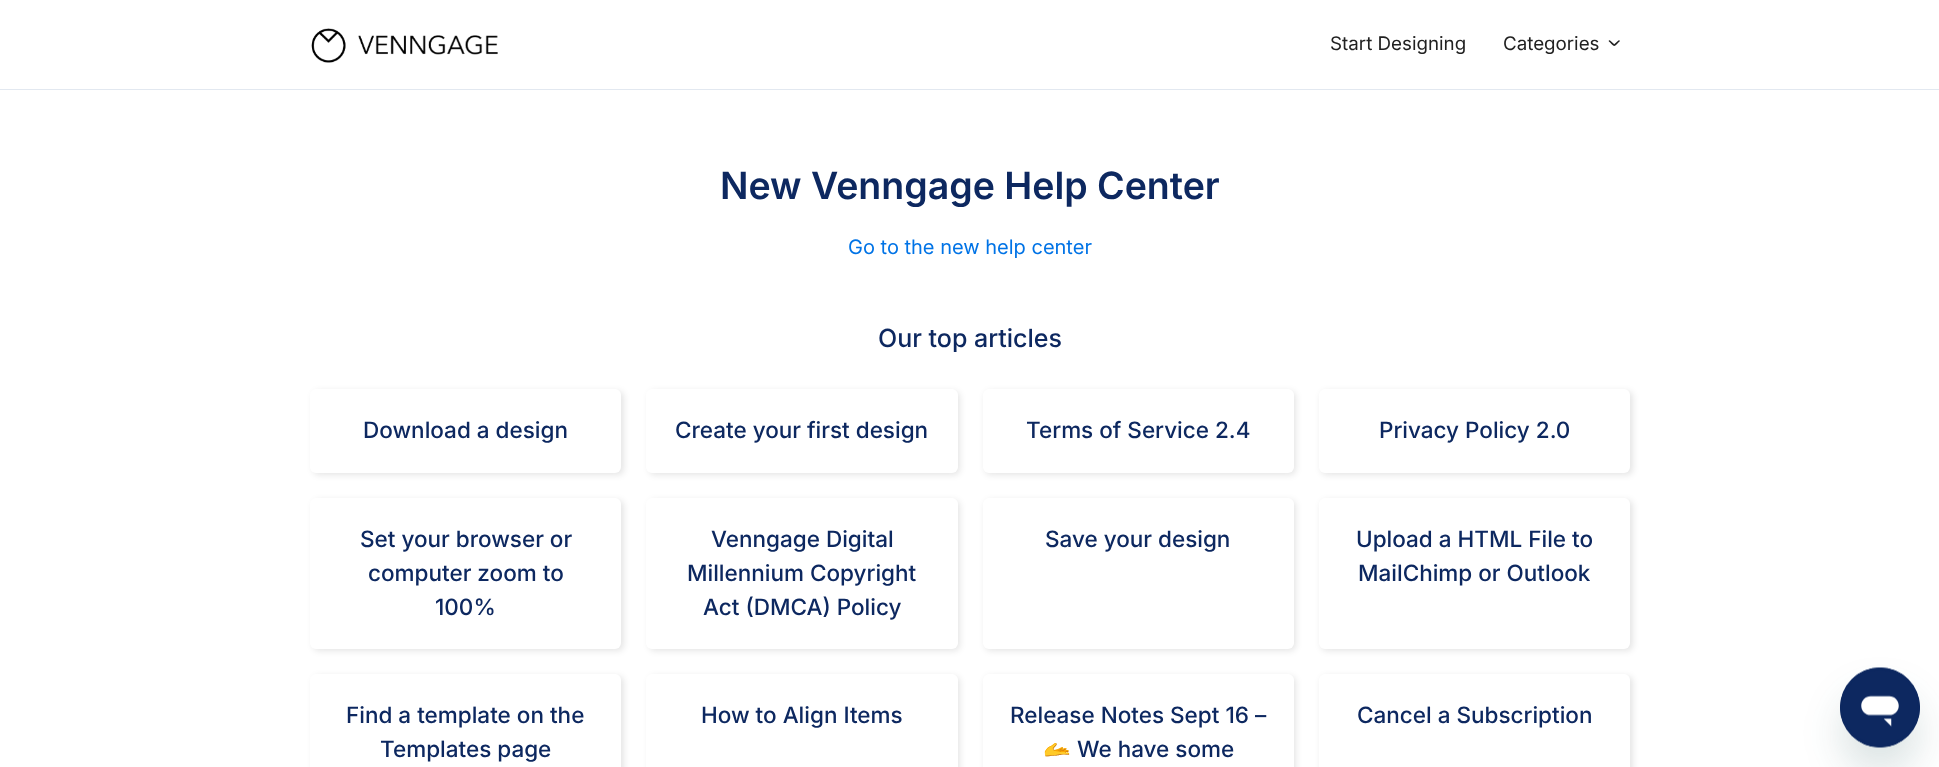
async function draw(canvas) {
  canvas.width = 1939
  canvas.height = 767
  const ctx = canvas.getContext('2d')
  ctx.miterLimit = 4
  ctx.fontKerning = 'normal'
  async function loadImage(src) {
    const img = new Image()
    img.src = src
    await img.decode()
    return img
  }

  ctx.fillStyle = '#fff'
  ctx.fillRect(0, 0, 1939, 767)
  ctx.fillStyle = '#e2e8f0'
  ctx.fillRect(0, 89, 1939, 1)
  ctx.drawImage(await loadImage('image0.png'), 311, 28, 187, 35)
  ctx.font = '18.75px Inter'
  ctx.fillStyle = '#212121'
  ctx.fillText('Start Designing', 1330, 50)
  ctx.fillText('Categories', 1503, 50)
  ctx.beginPath()
  ctx.moveTo(1609.5, 41)
  ctx.bezierCurveTo(1615.5, 46.5, 1613, 46.5, 1619, 41)
  ctx.strokeStyle = '#212121'
  ctx.lineWidth = 1.6
  ctx.lineCap = 'round'
  ctx.stroke()
  ctx.font = '600 37.5px Inter'
  ctx.fillStyle = '#0d2860'
  ctx.fillText('New Venngage Help Center', 720, 199)
  ctx.font = '20px Inter'
  ctx.fillStyle = '#0073e6'
  ctx.fillText('Go to the new help center', 848, 254)
  ctx.font = '500 25px Inter'
  ctx.fillStyle = '#0d2860'
  ctx.fillText('Our top articles', 878, 347)
  ctx.fillStyle = '#0000001a'
  ctx.filter = 'blur(3px)'
  ctx.beginPath()
  ctx.roundRect(313, 391, 311, 84, 6)
  ctx.fill()
  ctx.filter = 'none'
  ctx.fillStyle = '#fff'
  ctx.beginPath()
  ctx.roundRect(310, 389, 311, 84, 6)
  ctx.fill()
  ctx.font = '500 22.5px Inter'
  ctx.fillStyle = '#0d2860'
  ctx.fillText('Download a design', 363, 438)
  ctx.fillStyle = '#0000001a'
  ctx.filter = 'blur(3px)'
  ctx.beginPath()
  ctx.roundRect(649, 391, 311, 84, 6)
  ctx.fill()
  ctx.filter = 'none'
  ctx.fillStyle = '#fff'
  ctx.beginPath()
  ctx.roundRect(646, 389, 312, 84, 6)
  ctx.fill()
  ctx.fillStyle = '#0d2860'
  ctx.fillText('Create your first design', 675, 438)
  ctx.fillStyle = '#0000001a'
  ctx.filter = 'blur(3px)'
  ctx.beginPath()
  ctx.roundRect(985, 391, 311, 84, 6)
  ctx.fill()
  ctx.filter = 'none'
  ctx.fillStyle = '#fff'
  ctx.beginPath()
  ctx.roundRect(983, 389, 311, 84, 6)
  ctx.fill()
  ctx.fillStyle = '#0d2860'
  ctx.fillText('Terms of Service 2.4', 1026, 438)
  ctx.fillStyle = '#0000001a'
  ctx.filter = 'blur(3px)'
  ctx.beginPath()
  ctx.roundRect(1321, 391, 312, 84, 6)
  ctx.fill()
  ctx.filter = 'none'
  ctx.fillStyle = '#fff'
  ctx.beginPath()
  ctx.roundRect(1319, 389, 311, 84, 6)
  ctx.fill()
  ctx.fillStyle = '#0d2860'
  ctx.fillText('Privacy Policy 2.0', 1379, 438)
  ctx.fillStyle = '#0000001a'
  ctx.filter = 'blur(3px)'
  ctx.beginPath()
  ctx.roundRect(313, 500, 311, 151, 6)
  ctx.fill()
  ctx.filter = 'none'
  ctx.fillStyle = '#fff'
  ctx.beginPath()
  ctx.roundRect(310, 498, 311, 151, 6)
  ctx.fill()
  ctx.fillStyle = '#0d2860'
  ctx.fillText('Set your browser or', 360, 547)
  ctx.fillText('computer zoom to', 368, 581)
  ctx.fillText('100%', 435, 615)
  ctx.fillStyle = '#0000001a'
  ctx.filter = 'blur(3px)'
  ctx.beginPath()
  ctx.roundRect(649, 500, 311, 151, 6)
  ctx.fill()
  ctx.filter = 'none'
  ctx.fillStyle = '#fff'
  ctx.beginPath()
  ctx.roundRect(646, 498, 312, 151, 6)
  ctx.fill()
  ctx.fillStyle = '#0d2860'
  ctx.fillText('Venngage Digital', 711, 547)
  ctx.fillText('Millennium Copyright', 687, 581)
  ctx.fillText('Act (DMCA) Policy', 703, 615)
  ctx.fillStyle = '#0000001a'
  ctx.filter = 'blur(3px)'
  ctx.beginPath()
  ctx.roundRect(985, 500, 311, 151, 6)
  ctx.fill()
  ctx.filter = 'none'
  ctx.fillStyle = '#fff'
  ctx.beginPath()
  ctx.roundRect(983, 498, 311, 151, 6)
  ctx.fill()
  ctx.fillStyle = '#0d2860'
  ctx.fillText('Save your design', 1045, 547)
  ctx.fillStyle = '#0000001a'
  ctx.filter = 'blur(3px)'
  ctx.beginPath()
  ctx.roundRect(1321, 500, 312, 151, 6)
  ctx.fill()
  ctx.filter = 'none'
  ctx.fillStyle = '#fff'
  ctx.beginPath()
  ctx.roundRect(1319, 498, 311, 151, 6)
  ctx.fill()
  ctx.fillStyle = '#0d2860'
  ctx.fillText('Upload a HTML File to', 1356, 547)
  ctx.fillText('MailChimp or Outlook', 1358, 581)
  ctx.fillStyle = '#0000001a'
  ctx.filter = 'blur(3px)'
  ctx.beginPath()
  ctx.roundRect(313, 676, 311, 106, 6)
  ctx.fill()
  ctx.filter = 'none'
  ctx.fillStyle = '#fff'
  ctx.beginPath()
  ctx.roundRect(310, 674, 311, 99, 6)
  ctx.fill()
  ctx.fillStyle = '#0d2860'
  ctx.fillText('Find a template on the', 346, 723)
  ctx.fillText('Templates page', 380, 757)
  ctx.fillStyle = '#0000001a'
  ctx.filter = 'blur(3px)'
  ctx.beginPath()
  ctx.roundRect(649, 676, 311, 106, 6)
  ctx.fill()
  ctx.filter = 'none'
  ctx.fillStyle = '#fff'
  ctx.beginPath()
  ctx.roundRect(646, 674, 312, 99, 6)
  ctx.fill()
  ctx.fillStyle = '#0d2860'
  ctx.fillText('How to Align Items', 701, 723)
  ctx.fillStyle = '#0000001a'
  ctx.filter = 'blur(3px)'
  ctx.beginPath()
  ctx.roundRect(985, 676, 311, 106, 6)
  ctx.fill()
  ctx.filter = 'none'
  ctx.fillStyle = '#fff'
  ctx.beginPath()
  ctx.roundRect(983, 674, 311, 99, 6)
  ctx.fill()
  ctx.fillStyle = '#0d2860'
  ctx.fillText('Release Notes Sept 16 –', 1010, 723)
  ctx.font = '22.5px Noto Color Emoji'
  ctx.fillText('🫴', 1043, 757)
  ctx.font = '500 22.5px Inter'
  ctx.fillText('We have some', 1077, 757)
  ctx.fillStyle = '#0000001a'
  ctx.filter = 'blur(3px)'
  ctx.beginPath()
  ctx.roundRect(1321, 676, 312, 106, 6)
  ctx.fill()
  ctx.filter = 'none'
  ctx.fillStyle = '#fff'
  ctx.beginPath()
  ctx.roundRect(1319, 674, 311, 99, 6)
  ctx.fill()
  ctx.fillStyle = '#0d2860'
  ctx.fillText('Cancel a Subscription', 1357, 723)
  ctx.fillStyle = '#17494d26'
  ctx.filter = 'blur(19px)'
  ctx.beginPath()
  ctx.roundRect(1840, 693, 80, 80, 40)
  ctx.fill()
  ctx.filter = 'none'
  ctx.drawImage(await loadImage('image1.png'), 1840, 667, 80, 81)
}

draw(document.querySelector('canvas'))
